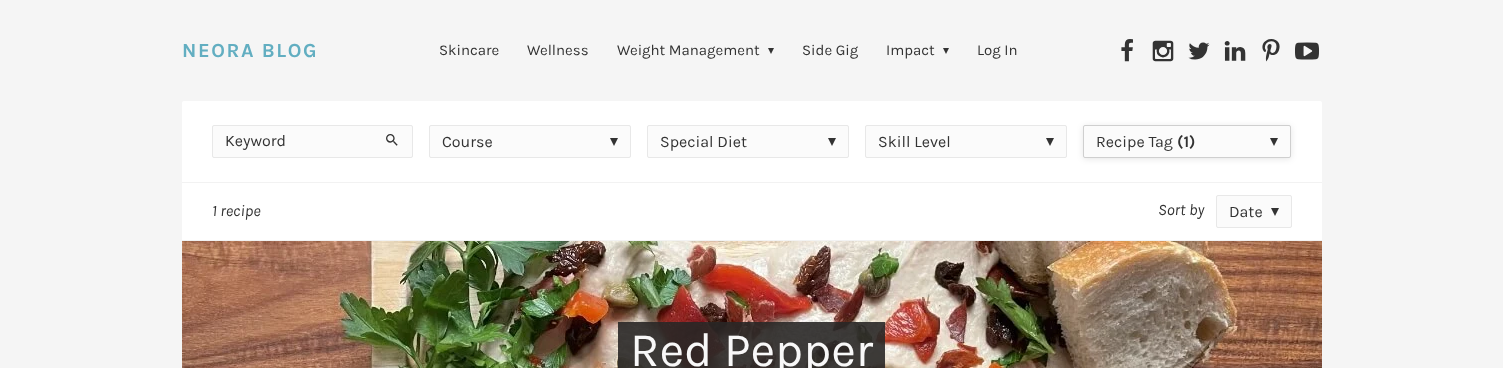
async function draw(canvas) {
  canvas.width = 1503
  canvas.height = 368
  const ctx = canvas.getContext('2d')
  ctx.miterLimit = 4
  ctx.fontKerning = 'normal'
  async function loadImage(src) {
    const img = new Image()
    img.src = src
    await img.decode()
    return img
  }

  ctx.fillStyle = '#f5f5f5'
  ctx.fillRect(0, 0, 1503, 368)
  ctx.letterSpacing = '1.6px'
  ctx.font = 'bold 20px Karla'
  ctx.fillStyle = '#62aec1'
  ctx.fillText('NEORA BLOG', 182, 57)
  ctx.letterSpacing = '0px'
  ctx.font = '15px Karla'
  ctx.fillStyle = '#333'
  ctx.fillText('Skincare', 439, 55)
  ctx.fillText('Wellness', 527, 55)
  ctx.fillText('Weight Management', 617, 55)
  ctx.beginPath()
  ctx.moveTo(768, 48)
  ctx.lineTo(774, 48)
  ctx.lineTo(771, 54)
  ctx.closePath()
  ctx.fill()
  ctx.fillText('Side Gig', 802, 55)
  ctx.fillText('Impact', 886, 55)
  ctx.beginPath()
  ctx.moveTo(943, 48)
  ctx.lineTo(949, 48)
  ctx.lineTo(946, 54)
  ctx.closePath()
  ctx.fill()
  ctx.fillText('Log In', 977, 55)
  ctx.drawImage(await loadImage('image0.png'), 1121, 39, 12, 23)
  ctx.drawImage(await loadImage('image1.png'), 1152, 40, 22, 22)
  ctx.drawImage(await loadImage('image2.png'), 1188, 42, 22, 18)
  ctx.drawImage(await loadImage('image3.png'), 1224, 41, 22, 20)
  ctx.drawImage(await loadImage('image4.png'), 1262, 39, 18, 23)
  ctx.drawImage(await loadImage('image5.png'), 1295, 42, 24, 18)
  ctx.fillStyle = '#fff'
  ctx.beginPath()
  ctx.roundRect(182, 101, 1140, 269, 2)
  ctx.fill()
  ctx.fillStyle = '#fbfbfb'
  ctx.beginPath()
  ctx.roundRect(212.5, 125.5, 200, 32, 1.5)
  ctx.fill()
  ctx.strokeStyle = '#e8e8e8'
  ctx.stroke()
  ctx.font = '16px Karla'
  ctx.fillStyle = '#333'
  ctx.fillText('Keyword', 225, 146)
  ctx.drawImage(await loadImage('image6.png'), 386, 134, 12, 12)
  ctx.fillStyle = '#fbfbfb'
  ctx.beginPath()
  ctx.roundRect(429.5, 125.5, 201, 32, 1.5)
  ctx.fill()
  ctx.stroke()
  ctx.fillStyle = '#333'
  ctx.fillText('Course', 442, 147)
  ctx.beginPath()
  ctx.moveTo(610, 138)
  ctx.lineTo(618, 138)
  ctx.lineTo(614, 146)
  ctx.closePath()
  ctx.fill()
  ctx.fillStyle = '#fbfbfb'
  ctx.beginPath()
  ctx.roundRect(647.5, 125.5, 201, 32, 1.5)
  ctx.fill()
  ctx.stroke()
  ctx.fillStyle = '#333'
  ctx.fillText('Special Diet', 660, 147)
  ctx.beginPath()
  ctx.moveTo(828, 138)
  ctx.lineTo(836, 138)
  ctx.lineTo(832, 146)
  ctx.closePath()
  ctx.fill()
  ctx.fillStyle = '#fbfbfb'
  ctx.beginPath()
  ctx.roundRect(865.5, 125.5, 201, 32, 1.5)
  ctx.fill()
  ctx.stroke()
  ctx.fillStyle = '#333'
  ctx.fillText('Skill Level', 878, 147)
  ctx.beginPath()
  ctx.moveTo(1046, 138)
  ctx.lineTo(1054, 138)
  ctx.lineTo(1050, 146)
  ctx.closePath()
  ctx.fill()
  ctx.fillStyle = '#0000001a'
  ctx.filter = 'blur(3px)'
  ctx.beginPath()
  ctx.roundRect(1083, 126, 208, 33, 2)
  ctx.fill()
  ctx.filter = 'none'
  ctx.fillStyle = '#fbfbfb'
  ctx.beginPath()
  ctx.roundRect(1083.5, 125.5, 207, 32, 1.5)
  ctx.fill()
  ctx.strokeStyle = '#cfcfcf'
  ctx.stroke()
  ctx.fillStyle = '#333'
  ctx.fillText('Recipe Tag', 1096, 147)
  ctx.font = 'bold 16px Karla'
  ctx.fillText('(1)', 1177, 147)
  ctx.beginPath()
  ctx.moveTo(1270, 138)
  ctx.lineTo(1278, 138)
  ctx.lineTo(1274, 146)
  ctx.closePath()
  ctx.fill()
  ctx.fillStyle = '#f2f2f2'
  ctx.fillRect(182, 182, 1140, 1)
  ctx.fillRect(182, 240, 1140, 1)
  ctx.font = 'italic 16px Karla'
  ctx.fillStyle = '#333'
  ctx.fillText('1 recipe', 212, 216)
  ctx.fillText('Sort by', 1158, 215)
  ctx.fillStyle = '#fbfbfb'
  ctx.beginPath()
  ctx.roundRect(1216.5, 195.5, 75, 32, 1.5)
  ctx.fill()
  ctx.strokeStyle = '#e8e8e8'
  ctx.stroke()
  ctx.font = '16px Karla'
  ctx.fillStyle = '#333'
  ctx.fillText('Date', 1229, 217)
  ctx.beginPath()
  ctx.moveTo(1271, 208)
  ctx.lineTo(1279, 208)
  ctx.lineTo(1275, 216)
  ctx.closePath()
  ctx.fill()
  ctx.drawImage(await loadImage('image7.png'), 182, 241, 1140, 127)
  ctx.fillStyle = '#292726e6'
  ctx.fillRect(618, 322, 267, 46)
  ctx.font = '48px Karla'
  ctx.fillStyle = '#f8f8f8'
  ctx.fillText('Red Pepper', 630, 366)
}

draw(document.querySelector('canvas'))
